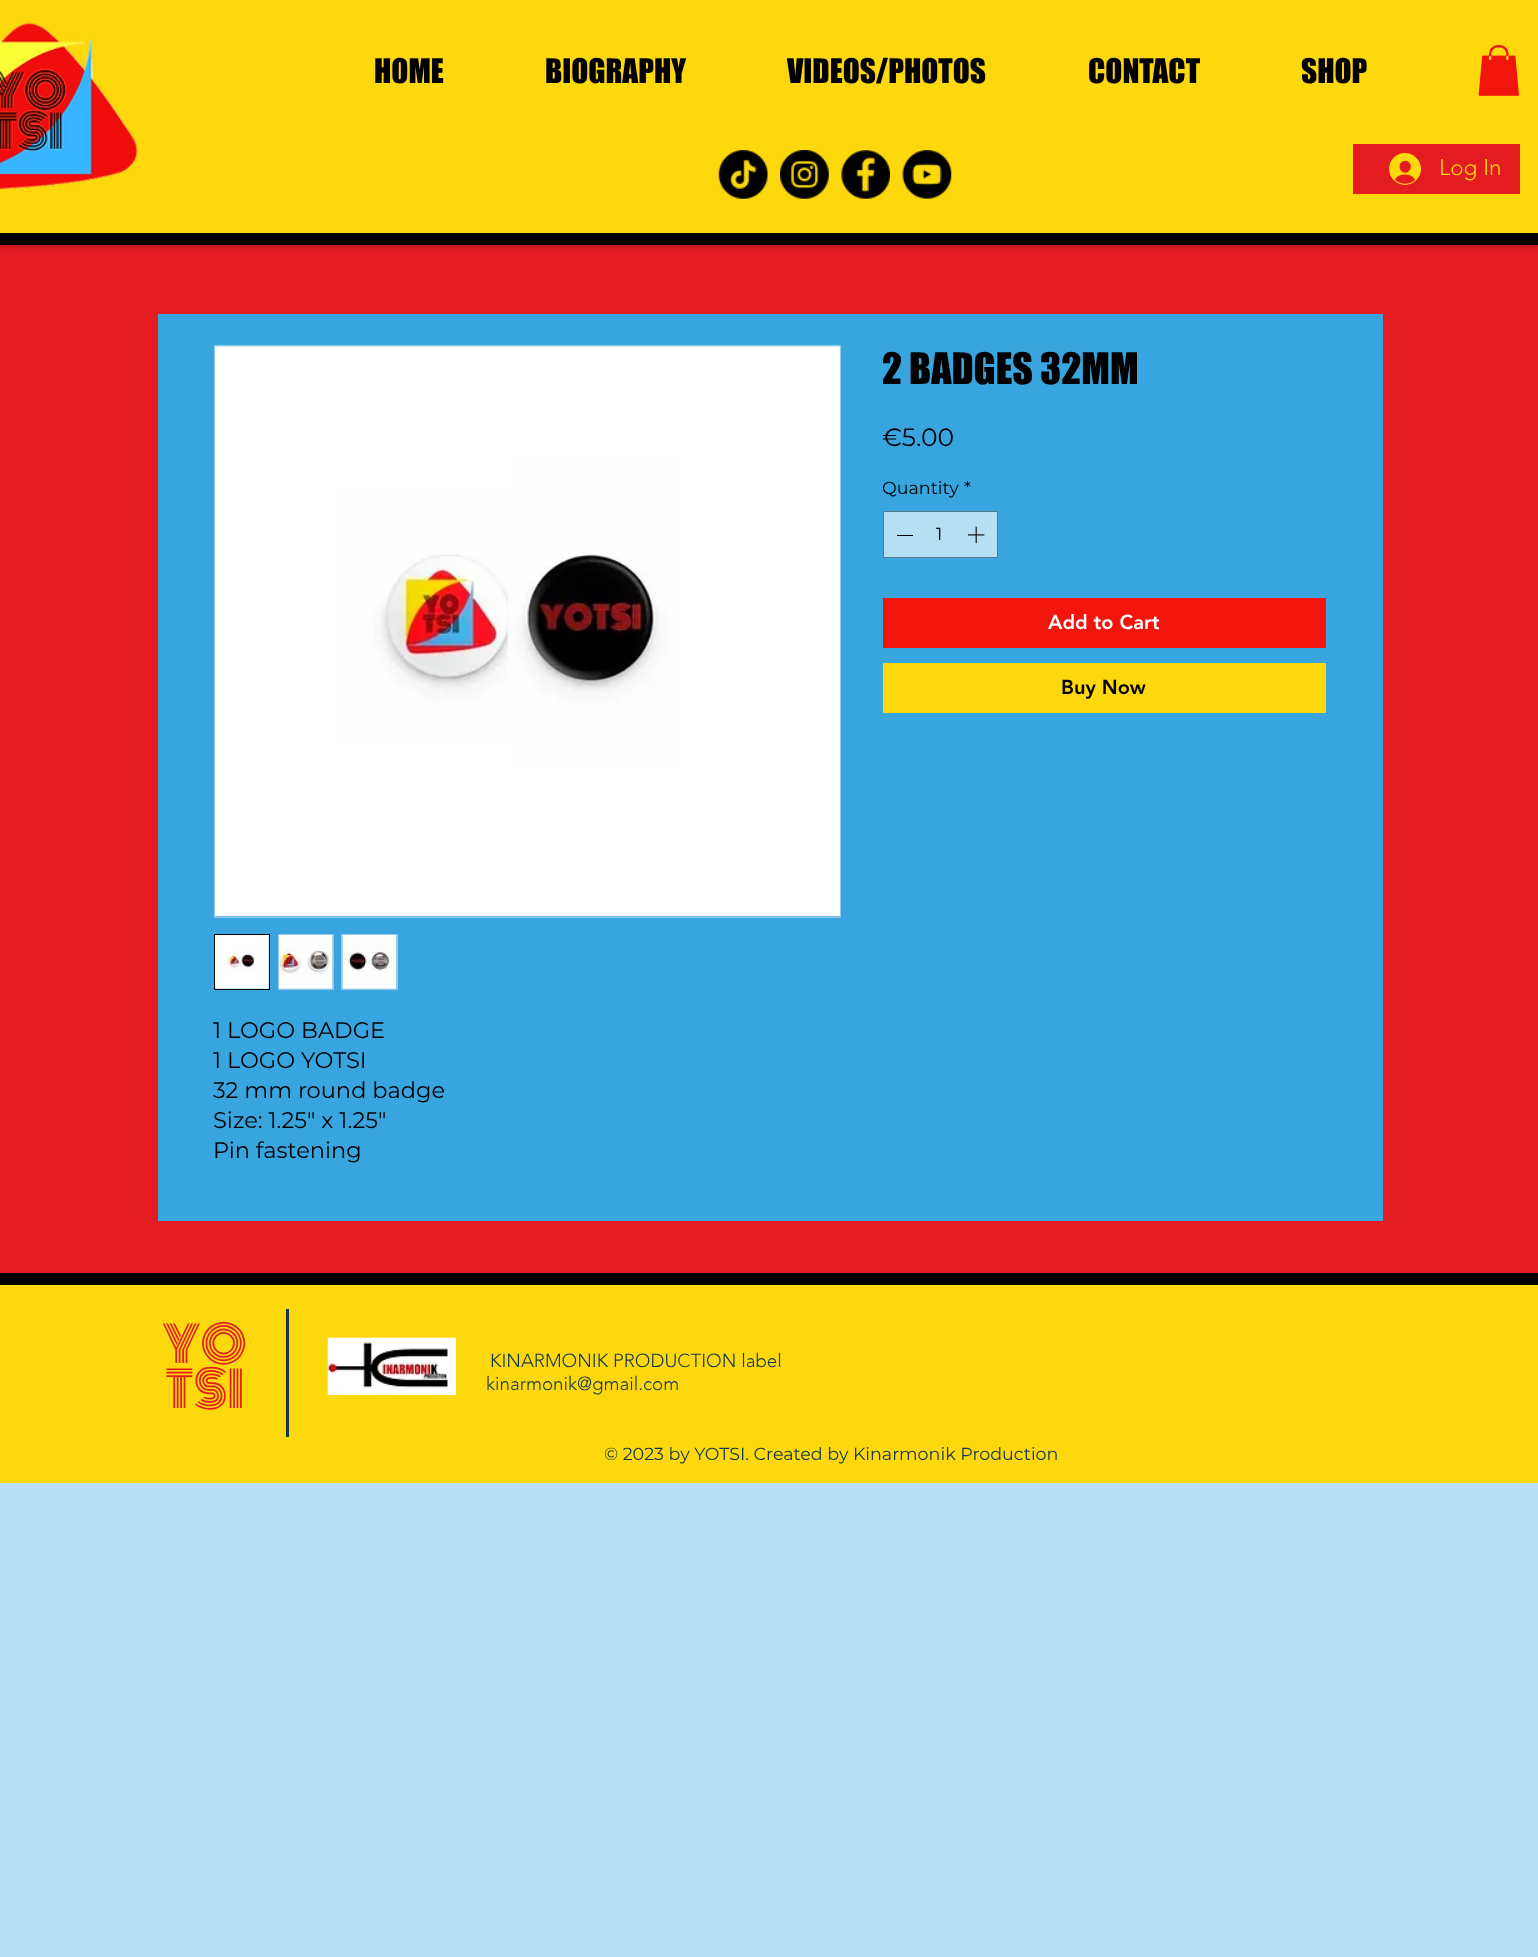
async function draw(canvas) {
  canvas.width = 1538
  canvas.height = 1957
  const ctx = canvas.getContext('2d')
  ctx.miterLimit = 4
  ctx.fontKerning = 'normal'
  async function loadImage(src) {
    const img = new Image()
    img.src = src
    await img.decode()
    return img
  }

  ctx.fillStyle = '#b7dff4'
  ctx.fillRect(0, 0, 1538, 1957)
  ctx.fillStyle = '#e21c21'
  ctx.fillRect(0, 245, 1538, 1028)
  ctx.fillStyle = '#00000080'
  ctx.filter = 'blur(3px)'
  ctx.beginPath()
  ctx.rect(0, 0, 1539, 244)
  ctx.fill()
  ctx.filter = 'none'
  ctx.fillStyle = '#fdd80d'
  ctx.fillRect(0, 0, 1538, 233)
  ctx.drawImage(await loadImage('image0.png'), 0, 22, 138, 168)
  ctx.font = '31.25px "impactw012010"'
  ctx.fillStyle = '#000'
  ctx.fillText('HOME', 374, 83)
  ctx.fillText('BIOGRAPHY', 545, 83)
  ctx.fillText('VIDEOS/PHOTOS', 787, 83)
  ctx.fillText('CONTACT', 1088, 83)
  ctx.fillText('SHOP', 1301, 83)
  ctx.drawImage(await loadImage('image1.png'), 1478, 45, 41, 51)
  ctx.drawImage(await loadImage('image2.png'), 718, 150, 50, 49)
  ctx.drawImage(await loadImage('image3.png'), 780, 150, 49, 49)
  ctx.drawImage(await loadImage('image4.png'), 841, 150, 49, 49)
  ctx.drawImage(await loadImage('image5.png'), 902, 150, 50, 49)
  ctx.fillStyle = '#e21c21'
  ctx.fillRect(1353, 144, 167, 50)
  ctx.drawImage(await loadImage('image6.png'), 1389, 153, 32, 32)
  ctx.font = '300 22.5px "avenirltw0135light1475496"'
  ctx.fillStyle = '#fdd80d'
  ctx.fillText('Log In', 1439, 175)
  ctx.fillStyle = '#000'
  ctx.fillRect(0, 233, 1538, 12)
  ctx.fillStyle = '#38a5df'
  ctx.fillRect(158, 314, 1225, 907)
  ctx.font = '40px "impactw012010"'
  ctx.fillStyle = '#000'
  ctx.fillText('2 BADGES 32MM', 882, 384)
  ctx.font = '25px Montserrat'
  ctx.fillText('€5.00', 882, 446)
  ctx.font = '17.5px Montserrat'
  ctx.fillText('Quantity', 882, 494)
  ctx.fillText('*', 964, 494)
  ctx.fillStyle = '#b7dff4'
  ctx.beginPath()
  ctx.rect(883.5, 511.5, 114, 46)
  ctx.fill()
  ctx.strokeStyle = '#557a8e'
  ctx.stroke()
  ctx.fillStyle = '#000'
  ctx.fillRect(897, 535, 16, 1)
  ctx.fillText('1', 936, 540)
  ctx.drawImage(await loadImage('image7.png'), 968, 526, 17, 18)
  ctx.fillStyle = '#f2150d'
  ctx.fillRect(883, 598, 443, 50)
  ctx.font = '900 20px "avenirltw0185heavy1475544"'
  ctx.fillStyle = '#fff'
  ctx.fillText('Add to Cart', 1048, 629)
  ctx.fillStyle = '#fdd80d'
  ctx.fillRect(883, 663, 443, 50)
  ctx.fillStyle = '#000'
  ctx.fillText('Buy Now', 1061, 694)
  ctx.strokeStyle = '#92cbea'
  ctx.strokeRect(214.5, 345.5, 626, 572)
  ctx.drawImage(await loadImage('image8.png'), 215, 346, 625, 571)
  ctx.fillStyle = '#92cbea'
  ctx.beginPath()
  ctx.rect(214.5, 934.5, 55, 55)
  ctx.fill()
  ctx.strokeStyle = '#000'
  ctx.stroke()
  ctx.drawImage(await loadImage('image9.png'), 215, 935, 54, 54)
  ctx.fillRect(278, 934, 56, 56)
  ctx.drawImage(await loadImage('image10.png'), 278, 935, 55, 54)
  ctx.fillRect(341, 934, 57, 56)
  ctx.drawImage(await loadImage('image11.png'), 342, 935, 55, 54)
  ctx.font = '22.5px Montserrat'
  ctx.fillStyle = '#000'
  ctx.fillText('1 LOGO BADGE', 213, 1038)
  ctx.fillText('1 LOGO YOTSI', 213, 1068)
  ctx.fillText('32 mm round badge', 213, 1098)
  ctx.fillText('Size: 1.25" x 1.25"', 213, 1128)
  ctx.fillText('Pin fastening', 213, 1158)
  ctx.fillStyle = '#fdd80d'
  ctx.fillRect(0, 1285, 1538, 198)
  ctx.fillStyle = '#000'
  ctx.fillRect(0, 1273, 1538, 12)
  ctx.font = '49px Monoton'
  ctx.fillStyle = '#e21c21'
  ctx.fillText('YO', 162, 1363)
  ctx.fillText('TSI', 165, 1408)
  ctx.fillStyle = '#13374a'
  ctx.fillRect(286, 1309, 3, 128)
  ctx.drawImage(await loadImage('image12.png'), 327, 1337, 130, 58)
  ctx.font = '300 18.75px "avenirltw0135light1475496"'
  ctx.fillText('KINARMONIK PRODUCTION label', 490, 1367)
  ctx.fillText('kinarmonik@gmail.com', 486, 1390)
  ctx.font = '17.5px Montserrat'
  ctx.fillText('© 2023 by YOTSI. Created by Kinarmonik Production', 604, 1460)
}

draw(document.querySelector('canvas'))
